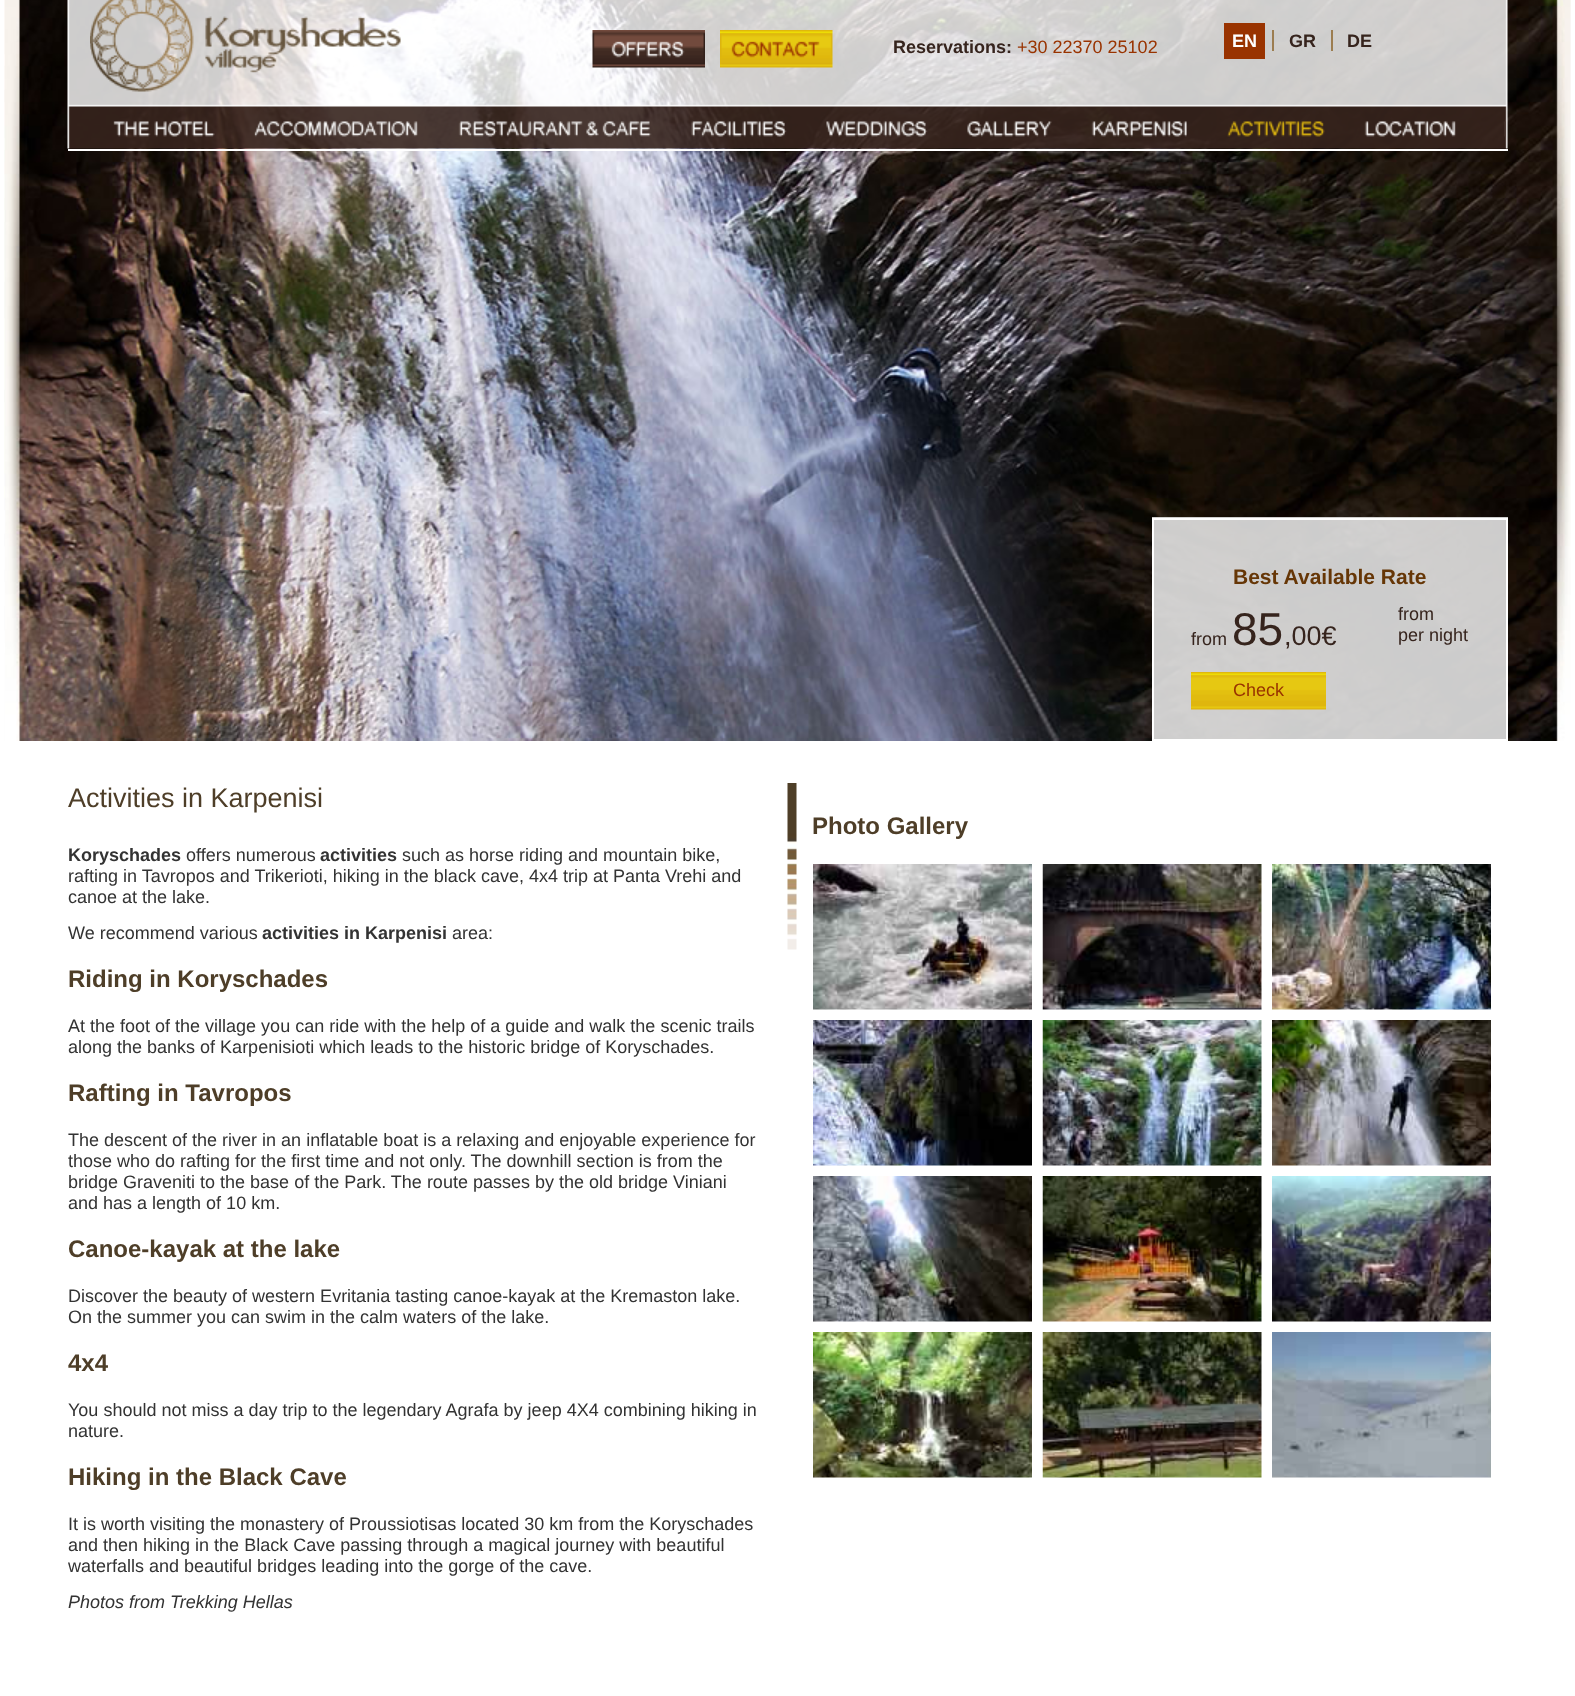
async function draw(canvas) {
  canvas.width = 1575
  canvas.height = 1696
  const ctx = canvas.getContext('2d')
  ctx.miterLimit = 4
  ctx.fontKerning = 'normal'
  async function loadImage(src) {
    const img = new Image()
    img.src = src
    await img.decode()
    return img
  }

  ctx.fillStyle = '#fff'
  ctx.fillRect(0, 0, 1575, 1696)
  ctx.drawImage(await loadImage('image13.png'), 4, 0, 1567, 741)
  ctx.drawImage(await loadImage('image14.png'), 5, 0, 1566, 741)
  ctx.drawImage(await loadImage('image0.png'), 67, 0, 1441, 149)
  ctx.drawImage(await loadImage('image1.png'), 90, 0, 311, 92)
  ctx.drawImage(await loadImage('image2.png'), 592, 30, 113, 38)
  ctx.drawImage(await loadImage('image3.png'), 720, 30, 113, 38)
  ctx.font = 'bold 18px Liberation Sans'
  ctx.fillStyle = '#36241d'
  ctx.fillText('Reservations:', 893, 53)
  ctx.font = '18px Liberation Sans'
  ctx.fillStyle = '#930'
  ctx.fillText('+30 22370 25102', 1017, 53)
  ctx.fillStyle = '#9c7d50'
  ctx.fillRect(1272, 30, 2, 21)
  ctx.fillStyle = '#930'
  ctx.fillRect(1224, 23, 41, 36)
  ctx.font = 'bold 18px Liberation Sans'
  ctx.fillStyle = '#fff'
  ctx.fillText('EN', 1232, 47)
  ctx.fillStyle = '#9c7d50'
  ctx.fillRect(1331, 30, 2, 21)
  ctx.fillStyle = '#36241d'
  ctx.fillText('GR', 1289, 47)
  ctx.fillText('DE', 1347, 47)
  ctx.fillStyle = '#fff'
  ctx.fillRect(68, 149, 1440, 2)
  ctx.drawImage(await loadImage('image4.png'), 113, 121, 102, 16)
  ctx.drawImage(await loadImage('image5.png'), 254, 121, 164, 16)
  ctx.drawImage(await loadImage('image6.png'), 458, 121, 194, 16)
  ctx.drawImage(await loadImage('image7.png'), 691, 121, 96, 16)
  ctx.drawImage(await loadImage('image8.png'), 826, 121, 102, 16)
  ctx.drawImage(await loadImage('image9.png'), 967, 121, 85, 16)
  ctx.drawImage(await loadImage('image10.png'), 1091, 121, 96, 16)
  ctx.drawImage(await loadImage('image11.png'), 1227, 121, 98, 16)
  ctx.drawImage(await loadImage('image12.png'), 1364, 121, 142, 16)
  ctx.fillStyle = '#e2e2e2e6'
  ctx.fillRect(1152, 517, 356, 222)
  ctx.strokeStyle = '#fff'
  ctx.lineWidth = 2
  ctx.strokeRect(1153, 519, 354, 221)
  ctx.font = 'bold 21px Liberation Sans'
  ctx.fillStyle = '#663606'
  ctx.fillText('Best Available Rate', 1233, 584)
  ctx.font = '18px Liberation Sans'
  ctx.fillStyle = '#36241d'
  ctx.fillText('from', 1191, 645)
  ctx.font = '46px Liberation Sans'
  ctx.fillText('85', 1232, 645)
  ctx.font = '27px Liberation Sans'
  ctx.fillText(',00€', 1284, 645)
  ctx.font = '18px Liberation Sans'
  ctx.fillText('from', 1398, 620)
  ctx.fillText('per night', 1398, 641)
  ctx.drawImage(await loadImage('image15.png'), 1191, 672, 135, 38)
  ctx.fillStyle = '#930'
  ctx.fillText('Check', 1233, 696)
  ctx.font = '27px Liberation Sans'
  ctx.fillStyle = '#4e3e28'
  ctx.fillText('Activities in Karpenisi', 68, 807)
  ctx.font = 'bold 18px Liberation Sans'
  ctx.fillStyle = '#333'
  ctx.fillText('Koryschades', 68, 861)
  ctx.font = '18px Liberation Sans'
  ctx.fillText('offers numerous', 186, 861)
  ctx.font = 'bold 18px Liberation Sans'
  ctx.fillText('activities', 320, 861)
  ctx.font = '18px Liberation Sans'
  ctx.fillText('such as horse riding and mountain bike,', 402, 861)
  ctx.fillText('rafting in Tavropos and Trikerioti, hiking in the black cave, 4x4 trip at Panta Vrehi and', 68, 882)
  ctx.fillText('canoe at the lake.', 68, 903)
  ctx.fillText('We recommend various', 68, 939)
  ctx.font = 'bold 18px Liberation Sans'
  ctx.fillText('activities in Karpenisi', 262, 939)
  ctx.font = '18px Liberation Sans'
  ctx.fillText('area:', 452, 939)
  ctx.font = 'bold 24px Liberation Sans'
  ctx.fillStyle = '#4e3e28'
  ctx.fillText('Riding in Koryschades', 68, 987)
  ctx.font = '18px Liberation Sans'
  ctx.fillStyle = '#333'
  ctx.fillText('At the foot of the village you can ride with the help of a guide and walk the scenic trails', 68, 1032)
  ctx.fillText('along the banks of Karpenisioti which leads to the historic bridge of Koryschades.', 68, 1053)
  ctx.font = 'bold 24px Liberation Sans'
  ctx.fillStyle = '#4e3e28'
  ctx.fillText('Rafting in Tavropos', 68, 1101)
  ctx.font = '18px Liberation Sans'
  ctx.fillStyle = '#333'
  ctx.fillText('The descent of the river in an inflatable boat is a relaxing and enjoyable experience for', 68, 1146)
  ctx.fillText('those who do rafting for the first time and not only. The downhill section is from the', 68, 1167)
  ctx.fillText('bridge Graveniti to the base of the Park. The route passes by the old bridge Viniani', 68, 1188)
  ctx.fillText('and has a length of 10 km.', 68, 1209)
  ctx.font = 'bold 24px Liberation Sans'
  ctx.fillStyle = '#4e3e28'
  ctx.fillText('Canoe-kayak at the lake', 68, 1257)
  ctx.font = '18px Liberation Sans'
  ctx.fillStyle = '#333'
  ctx.fillText('Discover the beauty of western Evritania tasting canoe-kayak at the Kremaston lake.', 68, 1302)
  ctx.fillText('On the summer you can swim in the calm waters of the lake.', 68, 1323)
  ctx.font = 'bold 24px Liberation Sans'
  ctx.fillStyle = '#4e3e28'
  ctx.fillText('4x4', 68, 1371)
  ctx.font = '18px Liberation Sans'
  ctx.fillStyle = '#333'
  ctx.fillText('You should not miss a day trip to the legendary Agrafa by jeep 4X4 combining hiking in', 68, 1416)
  ctx.fillText('nature.', 68, 1437)
  ctx.font = 'bold 24px Liberation Sans'
  ctx.fillStyle = '#4e3e28'
  ctx.fillText('Hiking in the Black Cave', 68, 1485)
  ctx.font = '18px Liberation Sans'
  ctx.fillStyle = '#333'
  ctx.fillText('It is worth visiting the monastery of Proussiotisas located 30 km from the Koryschades', 68, 1530)
  ctx.fillText('and then hiking in the Black Cave passing through a magical journey with beautiful', 68, 1551)
  ctx.fillText('waterfalls and beautiful bridges leading into the gorge of the cave.', 68, 1572)
  ctx.font = 'italic 18px Liberation Sans'
  ctx.fillText('Photos from Trekking Hellas', 68, 1608)
  ctx.drawImage(await loadImage('image16.png'), 787, 783, 10, 167)
  ctx.font = 'bold 24px Liberation Sans'
  ctx.fillStyle = '#4e3e28'
  ctx.fillText('Photo Gallery', 812, 834)
  ctx.drawImage(await loadImage('image17.png'), 813, 864, 219, 146)
  ctx.drawImage(await loadImage('image18.png'), 1042, 864, 220, 146)
  ctx.drawImage(await loadImage('image19.png'), 1272, 864, 219, 146)
  ctx.drawImage(await loadImage('image20.png'), 813, 1020, 219, 146)
  ctx.drawImage(await loadImage('image21.png'), 1042, 1020, 220, 146)
  ctx.drawImage(await loadImage('image22.png'), 1272, 1020, 219, 146)
  ctx.drawImage(await loadImage('image23.png'), 813, 1176, 219, 146)
  ctx.drawImage(await loadImage('image24.png'), 1042, 1176, 220, 146)
  ctx.drawImage(await loadImage('image25.png'), 1272, 1176, 219, 146)
  ctx.drawImage(await loadImage('image26.png'), 813, 1332, 219, 146)
  ctx.drawImage(await loadImage('image27.png'), 1042, 1332, 220, 146)
  ctx.drawImage(await loadImage('image28.png'), 1272, 1332, 219, 146)
}

draw(document.querySelector('canvas'))
